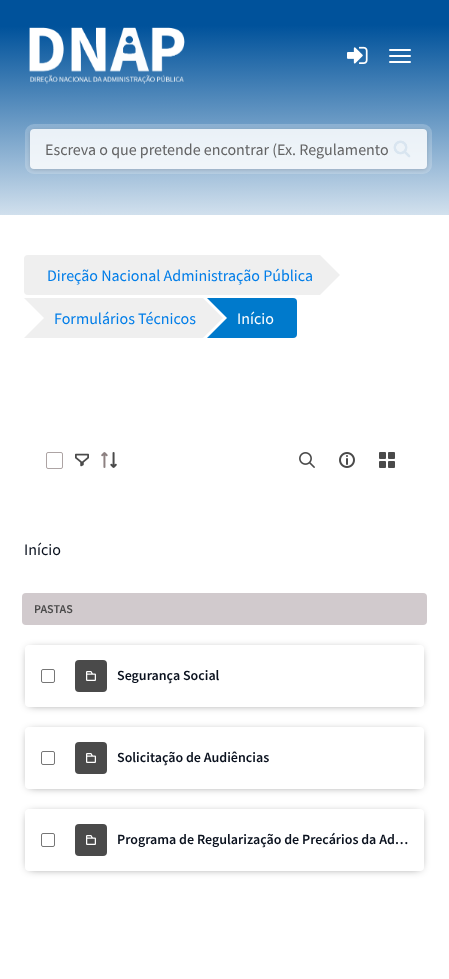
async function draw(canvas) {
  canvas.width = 449
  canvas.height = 979
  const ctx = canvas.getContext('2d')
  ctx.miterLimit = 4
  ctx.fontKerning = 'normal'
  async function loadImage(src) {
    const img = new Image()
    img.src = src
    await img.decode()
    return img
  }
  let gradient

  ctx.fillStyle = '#fff'
  ctx.fillRect(0, 0, 449, 979)
  gradient = ctx.createLinearGradient(224, 0, 225, 256)
  gradient.addColorStop(0.1, '#00529b')
  gradient.addColorStop(1, '#fff')
  ctx.fillStyle = gradient
  ctx.fillRect(0, 0, 449, 215)
  ctx.drawImage(await loadImage('image0.png'), 29, 27, 156, 57)
  ctx.drawImage(await loadImage('image1.png'), 347, 46, 21, 18)
  ctx.fillStyle = '#fff'
  ctx.beginPath()
  ctx.roundRect(389, 49, 22, 2, 1)
  ctx.fill()
  ctx.beginPath()
  ctx.roundRect(389, 55, 22, 2, 1)
  ctx.fill()
  ctx.beginPath()
  ctx.roundRect(389, 61, 22, 2, 1)
  ctx.fill()
  ctx.drawImage(await loadImage('image2.png'), 393, 140, 18, 18)
  ctx.beginPath()
  ctx.roundRect(27.5, 126.5, 402, 45, 6.5)
  ctx.strokeStyle = '#ffffff36'
  ctx.lineWidth = 5
  ctx.stroke()
  ctx.save()
  ctx.beginPath()
  ctx.moveTo(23, 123)
  ctx.lineTo(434, 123)
  ctx.lineTo(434, 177)
  ctx.lineTo(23, 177)
  ctx.closePath()
  ctx.moveTo(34, 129)
  ctx.lineTo(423, 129)
  ctx.bezierCurveTo(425, 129, 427, 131, 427, 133)
  ctx.lineTo(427, 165)
  ctx.bezierCurveTo(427, 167, 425, 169, 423, 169)
  ctx.lineTo(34, 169)
  ctx.bezierCurveTo(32, 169, 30, 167, 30, 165)
  ctx.lineTo(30, 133)
  ctx.bezierCurveTo(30, 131, 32, 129, 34, 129)
  ctx.closePath()
  ctx.clip('evenodd')
  ctx.fillStyle = '#00000029'
  ctx.filter = 'blur(2px)'
  ctx.beginPath()
  ctx.roundRect(30, 130, 397, 40, 4)
  ctx.fill()
  ctx.filter = 'none'
  ctx.restore()
  ctx.fillStyle = '#ffffffd9'
  ctx.beginPath()
  ctx.roundRect(30, 129, 397, 40, 4)
  ctx.fill()
  ctx.font = '16px Source Sans Pro'
  ctx.fillStyle = '#636364'
  ctx.fillText('Escreva o que pretende encontrar (Ex. Regulamento', 45, 155)
  ctx.fillStyle = '#efefef'
  ctx.beginPath()
  ctx.roundRect(24, 255, 300, 40, [4, 0, 0, 4])
  ctx.fill()
  ctx.fillStyle = '#fff'
  ctx.fillRect(320, 255, 4, 40)
  ctx.fillStyle = '#007de8'
  ctx.fillText('Direção Nacional Administração Pública', 47, 281)
  ctx.fillStyle = '#efefef'
  ctx.beginPath()
  ctx.moveTo(320, 295)
  ctx.lineTo(320, 255)
  ctx.lineTo(340, 275)
  ctx.closePath()
  ctx.fill()
  ctx.fillRect(24, 298, 179, 40)
  ctx.fillStyle = '#fff'
  ctx.beginPath()
  ctx.moveTo(24, 338)
  ctx.lineTo(24, 298)
  ctx.lineTo(44, 318)
  ctx.closePath()
  ctx.fill()
  ctx.fillStyle = '#007de8'
  ctx.fillText('Formulários Técnicos', 54, 324)
  ctx.fillStyle = '#007acc'
  ctx.beginPath()
  ctx.roundRect(207, 298, 90, 40, [0, 4, 4, 0])
  ctx.fill()
  ctx.fillStyle = '#fff'
  ctx.beginPath()
  ctx.moveTo(207, 338)
  ctx.lineTo(207, 298)
  ctx.lineTo(227, 318)
  ctx.closePath()
  ctx.fill()
  ctx.fillStyle = '#efefef'
  ctx.beginPath()
  ctx.moveTo(203, 338)
  ctx.lineTo(203, 298)
  ctx.lineTo(223, 318)
  ctx.closePath()
  ctx.fill()
  ctx.fillStyle = '#fff'
  ctx.fillText('Início', 237, 324)
  ctx.beginPath()
  ctx.roundRect(46.5, 452.5, 16, 16, 1.5)
  ctx.strokeStyle = '#ada4a4'
  ctx.lineWidth = 1
  ctx.stroke()
  ctx.drawImage(await loadImage('image3.png'), 75, 453, 14, 14)
  ctx.drawImage(await loadImage('image4.png'), 101, 452, 16, 16)
  ctx.drawImage(await loadImage('image5.png'), 299, 452, 16, 16)
  ctx.drawImage(await loadImage('image6.png'), 339, 452, 16, 16)
  ctx.drawImage(await loadImage('image7.png'), 379, 452, 16, 16)
  ctx.fillStyle = '#09101d'
  ctx.fillText('Início', 24, 555)
  ctx.fillStyle = '#d1cacd'
  ctx.beginPath()
  ctx.roundRect(22, 593, 405, 32, 4)
  ctx.fill()
  ctx.font = '600 12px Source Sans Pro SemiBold'
  ctx.fillStyle = '#4a4a4a'
  ctx.fillText('PASTAS', 34, 613)
  ctx.fillStyle = '#00000099'
  ctx.filter = 'blur(5px)'
  ctx.beginPath()
  ctx.rect(29, 650, 391, 54)
  ctx.fill()
  ctx.filter = 'none'
  ctx.fillStyle = '#fff'
  ctx.beginPath()
  ctx.roundRect(25, 645, 399, 62, 4)
  ctx.fill()
  ctx.beginPath()
  ctx.roundRect(41.5, 669.5, 13, 13, 1.5)
  ctx.strokeStyle = '#767676'
  ctx.stroke()
  ctx.fillStyle = '#4a4a4a'
  ctx.beginPath()
  ctx.roundRect(75, 660, 32, 32, 4)
  ctx.fill()
  ctx.drawImage(await loadImage('image8.png'), 86, 671, 10, 10)
  ctx.font = '600 14px Source Sans Pro SemiBold'
  ctx.fillStyle = '#09101d'
  ctx.fillText('Segurança Social', 117, 680)
  ctx.fillStyle = '#00000099'
  ctx.filter = 'blur(5px)'
  ctx.beginPath()
  ctx.rect(29, 732, 391, 54)
  ctx.fill()
  ctx.filter = 'none'
  ctx.fillStyle = '#fff'
  ctx.beginPath()
  ctx.roundRect(25, 727, 399, 62, 4)
  ctx.fill()
  ctx.beginPath()
  ctx.roundRect(41.5, 751.5, 13, 13, 1.5)
  ctx.stroke()
  ctx.fillStyle = '#4a4a4a'
  ctx.beginPath()
  ctx.roundRect(75, 742, 32, 32, 4)
  ctx.fill()
  ctx.drawImage(await loadImage('image8.png'), 86, 753, 10, 10)
  ctx.fillStyle = '#09101d'
  ctx.fillText('Solicitação de Audiências', 117, 762)
  ctx.fillStyle = '#00000099'
  ctx.filter = 'blur(5px)'
  ctx.beginPath()
  ctx.rect(29, 814, 391, 54)
  ctx.fill()
  ctx.filter = 'none'
  ctx.fillStyle = '#fff'
  ctx.beginPath()
  ctx.roundRect(25, 809, 399, 62, 4)
  ctx.fill()
  ctx.beginPath()
  ctx.roundRect(41.5, 833.5, 13, 13, 1.5)
  ctx.stroke()
  ctx.fillStyle = '#4a4a4a'
  ctx.beginPath()
  ctx.roundRect(75, 824, 32, 32, 4)
  ctx.fill()
  ctx.drawImage(await loadImage('image8.png'), 86, 835, 10, 10)
  ctx.fillStyle = '#09101d'
  ctx.fillText('Programa de Regularização de Precários da Ad…', 117, 844)
}

draw(document.querySelector('canvas'))
